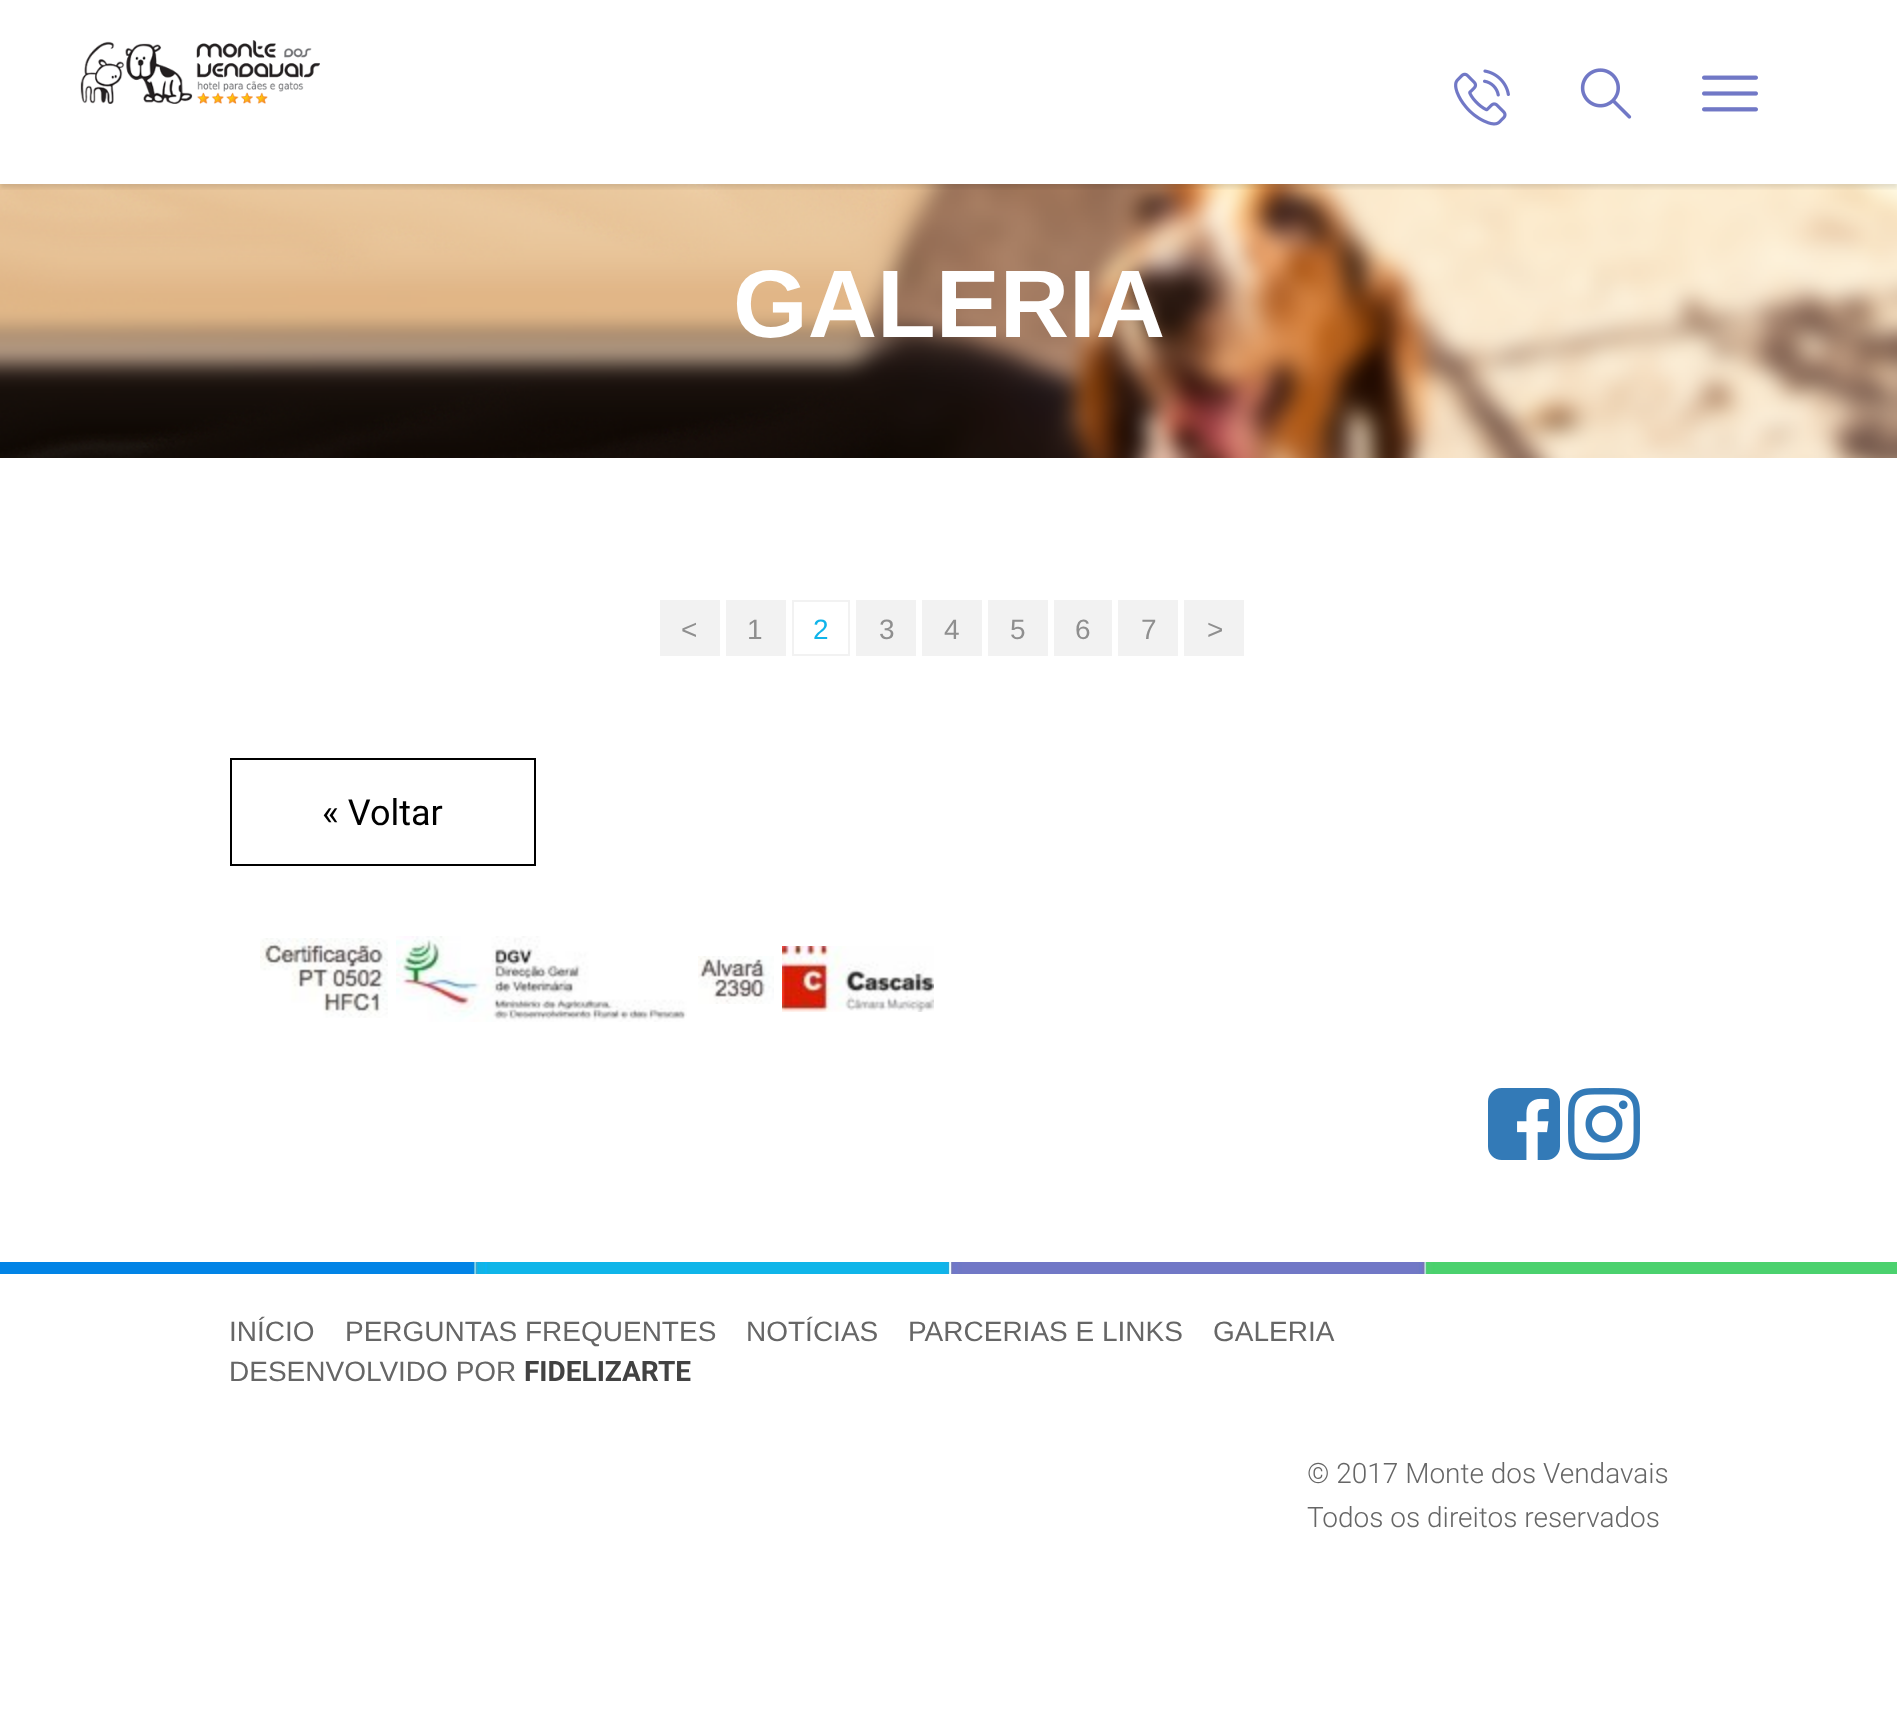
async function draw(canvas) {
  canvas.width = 1897
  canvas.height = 1718
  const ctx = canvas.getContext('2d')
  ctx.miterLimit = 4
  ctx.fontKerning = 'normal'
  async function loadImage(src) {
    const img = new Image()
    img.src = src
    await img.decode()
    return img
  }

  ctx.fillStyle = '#fff'
  ctx.fillRect(0, 0, 1897, 1718)
  ctx.drawImage(await loadImage('image4.png'), 0, 184, 1897, 274)
  ctx.save()
  ctx.beginPath()
  ctx.rect(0, 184, 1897, 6)
  ctx.clip()
  ctx.fillStyle = '#0000001a'
  ctx.filter = 'blur(2px)'
  ctx.beginPath()
  ctx.rect(0, 4, 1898, 184)
  ctx.fill()
  ctx.filter = 'none'
  ctx.restore()
  ctx.drawImage(await loadImage('image0.png'), 80, 40, 240, 64)
  ctx.drawImage(await loadImage('image1.png'), 1454, 69, 56, 57)
  ctx.drawImage(await loadImage('image2.png'), 1580, 68, 52, 51)
  ctx.drawImage(await loadImage('image3.png'), 1702, 75, 56, 37)
  ctx.font = 'bold 96px Liberation Sans'
  ctx.fillText('GALERIA', 733, 337)
  ctx.fillStyle = '#f2f2f2'
  ctx.fillRect(660, 600, 60, 56)
  ctx.font = '28px Liberation Sans'
  ctx.fillStyle = '#8f8f8f'
  ctx.fillText('<', 681, 639)
  ctx.fillStyle = '#f2f2f2'
  ctx.fillRect(726, 600, 60, 56)
  ctx.fillStyle = '#8f8f8f'
  ctx.fillText('1', 747, 639)
  ctx.strokeStyle = '#f2f2f2'
  ctx.lineWidth = 2
  ctx.strokeRect(793, 601, 56, 54)
  ctx.fillStyle = '#10b4ea'
  ctx.fillText('2', 813, 639)
  ctx.fillStyle = '#f2f2f2'
  ctx.fillRect(856, 600, 60, 56)
  ctx.fillStyle = '#8f8f8f'
  ctx.fillText('3', 879, 639)
  ctx.fillStyle = '#f2f2f2'
  ctx.fillRect(922, 600, 60, 56)
  ctx.fillStyle = '#8f8f8f'
  ctx.fillText('4', 944, 639)
  ctx.fillStyle = '#f2f2f2'
  ctx.fillRect(988, 600, 60, 56)
  ctx.fillStyle = '#8f8f8f'
  ctx.fillText('5', 1010, 639)
  ctx.fillStyle = '#f2f2f2'
  ctx.fillRect(1054, 600, 58, 56)
  ctx.fillStyle = '#8f8f8f'
  ctx.fillText('6', 1075, 639)
  ctx.fillStyle = '#f2f2f2'
  ctx.fillRect(1118, 600, 60, 56)
  ctx.fillStyle = '#8f8f8f'
  ctx.fillText('7', 1141, 639)
  ctx.fillStyle = '#f2f2f2'
  ctx.fillRect(1184, 600, 60, 56)
  ctx.fillStyle = '#8f8f8f'
  ctx.fillText('>', 1207, 639)
  ctx.strokeStyle = '#000'
  ctx.strokeRect(231, 759, 304, 106)
  ctx.font = '36px Roboto'
  ctx.fillStyle = '#000'
  ctx.fillText('« Voltar', 322, 825)
  ctx.drawImage(await loadImage('image5.png'), 260, 938, 128, 80)
  ctx.drawImage(await loadImage('image6.png'), 396, 936, 291, 86)
  ctx.drawImage(await loadImage('image7.png'), 698, 956, 76, 48)
  ctx.drawImage(await loadImage('image8.png'), 782, 946, 152, 66)
  ctx.drawImage(await loadImage('image9.png'), 1488, 1088, 72, 72)
  ctx.drawImage(await loadImage('image10.png'), 1568, 1088, 72, 72)
  ctx.drawImage(await loadImage('image11.png'), 0, 1262, 1897, 12)
  ctx.font = '28px Liberation Sans'
  ctx.fillStyle = '#666'
  ctx.fillText('INÍCIO', 229, 1341)
  ctx.fillText('PERGUNTAS FREQUENTES', 345, 1341)
  ctx.fillText('NOTÍCIAS', 746, 1341)
  ctx.fillText('PARCERIAS E LINKS', 908, 1341)
  ctx.fillText('GALERIA', 1213, 1341)
  ctx.fillText('DESENVOLVIDO POR', 229, 1381)
  ctx.font = 'bold 28px Roboto'
  ctx.fillStyle = '#424242'
  ctx.fillText('FIDELIZARTE', 524, 1381)
  ctx.font = '300 28px Roboto'
  ctx.fillStyle = '#666'
  ctx.fillText('© 2017 Monte dos Vendavais', 1307, 1483)
  ctx.fillText('Todos os direitos reservados', 1307, 1527)
}

draw(document.querySelector('canvas'))
